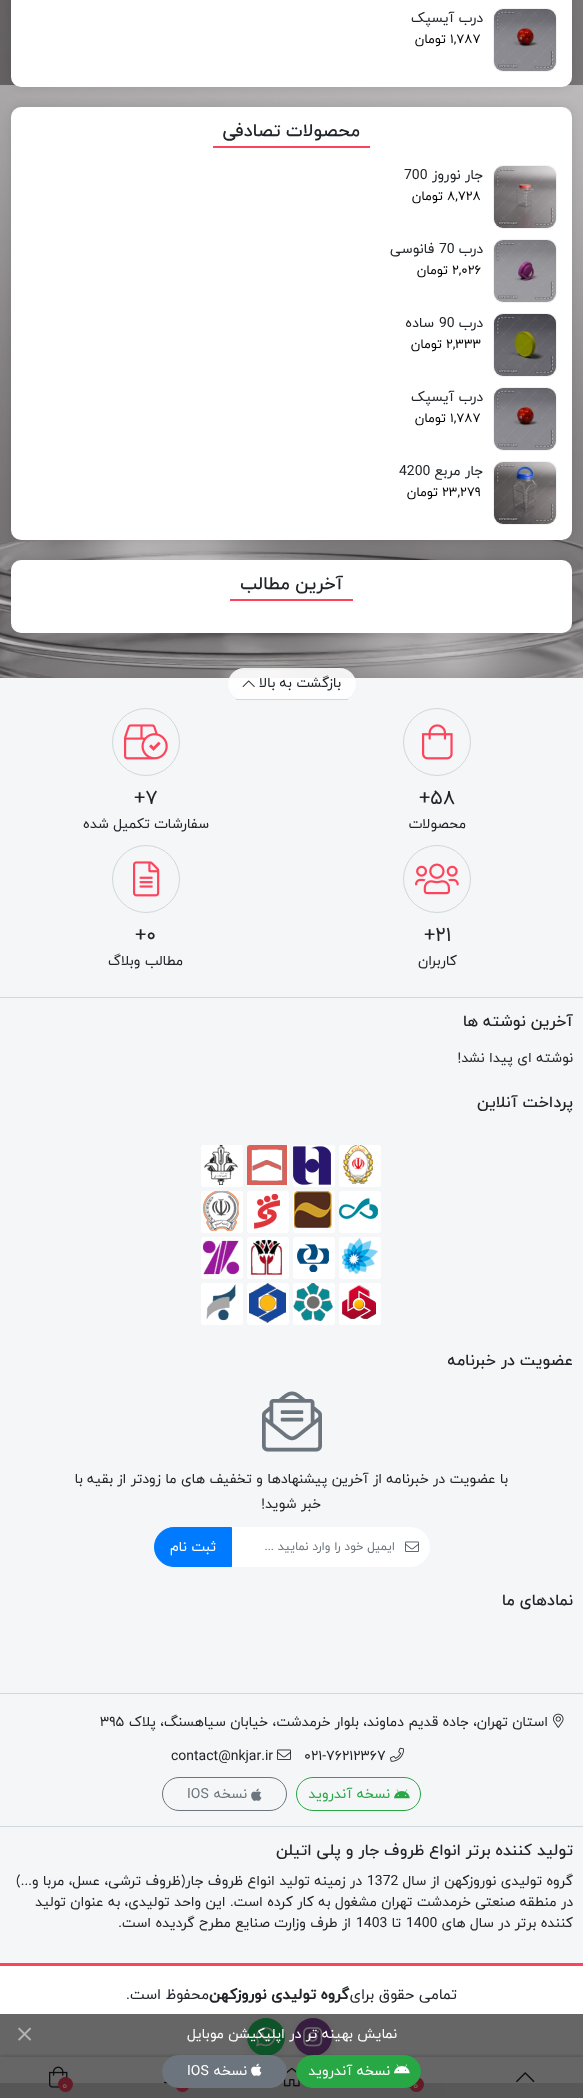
async function draw(canvas) {
  canvas.width = 583
  canvas.height = 2098
  const ctx = canvas.getContext('2d')
  ctx.miterLimit = 4
  ctx.fontKerning = 'normal'
  async function loadImage(src) {
    const img = new Image()
    img.src = src
    await img.decode()
    return img
  }

  ctx.fillStyle = '#fff'
  ctx.fillRect(0, 0, 583, 2098)
  ctx.drawImage(await loadImage('image0.png'), 0, 0, 583, 2098)
  ctx.fillStyle = '#0000001a'
  ctx.filter = 'blur(5px)'
  ctx.beginPath()
  ctx.roundRect(11, -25, 561, 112, 10)
  ctx.fill()
  ctx.filter = 'none'
  ctx.fillStyle = '#fff'
  ctx.beginPath()
  ctx.roundRect(11, -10, 561, 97, 10)
  ctx.fill()
  ctx.beginPath()
  ctx.roundRect(493.5, 8.5, 63, 63, 9.5)
  ctx.strokeStyle = '#f2f2f2'
  ctx.stroke()
  ctx.drawImage(await loadImage('image1.png'), 494, 9, 62, 62)
  ctx.direction = 'rtl'
  ctx.font = '14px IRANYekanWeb'
  ctx.fillStyle = '#212529'
  ctx.fillText('درب آیسپک', 483, 22)
  ctx.direction = 'ltr'
  ctx.font = '13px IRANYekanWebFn'
  ctx.fillStyle = '#000'
  ctx.fillText('1,787', 450, 43)
  ctx.direction = 'rtl'
  ctx.fillText('تومان', 446, 43)
  ctx.fillStyle = '#0000001a'
  ctx.filter = 'blur(5px)'
  ctx.beginPath()
  ctx.roundRect(11, 107, 561, 433, 10)
  ctx.fill()
  ctx.filter = 'none'
  ctx.fillStyle = '#fff'
  ctx.beginPath()
  ctx.roundRect(11, 107, 561, 433, 10)
  ctx.fill()
  ctx.fillStyle = '#fd445d'
  ctx.fillRect(213, 146, 157, 2)
  ctx.font = '500 18px IRANYekanWeb'
  ctx.fillStyle = '#212529'
  ctx.fillText('محصولات تصادفی', 360, 136)
  ctx.beginPath()
  ctx.roundRect(493.5, 165.5, 63, 63, 9.5)
  ctx.stroke()
  ctx.drawImage(await loadImage('image2.png'), 494, 166, 62, 62)
  ctx.font = '14px IRANYekanWeb'
  ctx.fillText('جار نوروز', 483, 179)
  ctx.direction = 'ltr'
  ctx.fillText('700', 404, 179)
  ctx.font = '13px IRANYekanWebFn'
  ctx.fillStyle = '#000'
  ctx.fillText('8,728', 447, 200)
  ctx.direction = 'rtl'
  ctx.fillText('تومان', 443, 200)
  ctx.beginPath()
  ctx.roundRect(493.5, 239.5, 63, 63, 9.5)
  ctx.stroke()
  ctx.drawImage(await loadImage('image3.png'), 494, 240, 62, 62)
  ctx.font = '14px IRANYekanWeb'
  ctx.fillStyle = '#212529'
  ctx.fillText('درب', 483, 253)
  ctx.direction = 'ltr'
  ctx.fillText('70', 439, 253)
  ctx.direction = 'rtl'
  ctx.fillText('فانوسی', 434, 253)
  ctx.direction = 'ltr'
  ctx.font = '13px IRANYekanWebFn'
  ctx.fillStyle = '#000'
  ctx.fillText('2,026', 452, 274)
  ctx.direction = 'rtl'
  ctx.fillText('تومان', 448, 274)
  ctx.beginPath()
  ctx.roundRect(493.5, 313.5, 63, 63, 9.5)
  ctx.stroke()
  ctx.drawImage(await loadImage('image4.png'), 494, 314, 62, 62)
  ctx.font = '14px IRANYekanWeb'
  ctx.fillStyle = '#212529'
  ctx.fillText('درب', 483, 327)
  ctx.direction = 'ltr'
  ctx.fillText('90', 439, 327)
  ctx.direction = 'rtl'
  ctx.fillText('ساده', 434, 327)
  ctx.direction = 'ltr'
  ctx.font = '13px IRANYekanWebFn'
  ctx.fillStyle = '#000'
  ctx.fillText('2,333', 446, 348)
  ctx.direction = 'rtl'
  ctx.fillText('تومان', 442, 348)
  ctx.beginPath()
  ctx.roundRect(493.5, 387.5, 63, 63, 9.5)
  ctx.stroke()
  ctx.drawImage(await loadImage('image5.png'), 494, 388, 62, 62)
  ctx.font = '14px IRANYekanWeb'
  ctx.fillStyle = '#212529'
  ctx.fillText('درب آیسپک', 483, 401)
  ctx.direction = 'ltr'
  ctx.font = '13px IRANYekanWebFn'
  ctx.fillStyle = '#000'
  ctx.fillText('1,787', 450, 422)
  ctx.direction = 'rtl'
  ctx.fillText('تومان', 446, 422)
  ctx.beginPath()
  ctx.roundRect(493.5, 461.5, 63, 63, 9.5)
  ctx.stroke()
  ctx.drawImage(await loadImage('image6.png'), 494, 462, 62, 62)
  ctx.font = '14px IRANYekanWeb'
  ctx.fillStyle = '#212529'
  ctx.fillText('جار مربع', 483, 475)
  ctx.direction = 'ltr'
  ctx.fillText('4200', 399, 475)
  ctx.font = '13px IRANYekanWebFn'
  ctx.fillStyle = '#000'
  ctx.fillText('23,279', 442, 496)
  ctx.direction = 'rtl'
  ctx.fillText('تومان', 438, 496)
  ctx.fillStyle = '#0000001a'
  ctx.filter = 'blur(5px)'
  ctx.beginPath()
  ctx.roundRect(11, 560, 561, 73, 10)
  ctx.fill()
  ctx.filter = 'none'
  ctx.fillStyle = '#fff'
  ctx.beginPath()
  ctx.roundRect(11, 560, 561, 73, 10)
  ctx.fill()
  ctx.fillStyle = '#fd445d'
  ctx.fillRect(230, 599, 123, 2)
  ctx.font = '500 18px IRANYekanWeb'
  ctx.fillStyle = '#212529'
  ctx.fillText('آخرین مطالب', 343, 589)
  ctx.fillStyle = '#0000001f'
  ctx.filter = 'blur(10px)'
  ctx.beginPath()
  ctx.rect(6, 678, 571, 1273)
  ctx.fill()
  ctx.filter = 'none'
  ctx.fillStyle = '#f4f6f7'
  ctx.fillRect(0, 678, 583, 1285)
  ctx.fillStyle = '#ffffffe6'
  ctx.beginPath()
  ctx.roundRect(228, 668, 128, 32, 16)
  ctx.fill()
  ctx.fillStyle = '#cfd8dc'
  ctx.fillRect(236, 699, 112, 1)
  ctx.font = '14px IRANYekanWeb'
  ctx.fillStyle = '#212529'
  ctx.fillText('بازگشت به بالا', 341, 687)
  ctx.drawImage(await loadImage('image7.png'), 242, 680, 13, 7)
  ctx.fillStyle = '#cfd8dc'
  ctx.fillRect(0, 997, 583, 1)
  ctx.beginPath()
  ctx.arc(437, 742, 33.5, 0, 2 * Math.PI)
  ctx.strokeStyle = '#cfd8dc'
  ctx.stroke()
  ctx.drawImage(await loadImage('image8.png'), 422, 724, 31, 36)
  ctx.direction = 'ltr'
  ctx.font = '20px IRANYekanWebFn'
  ctx.fillStyle = '#212529'
  ctx.fillText('+58', 419, 804)
  ctx.direction = 'rtl'
  ctx.font = '14px IRANYekanWeb'
  ctx.fillText('محصولات', 466, 828)
  ctx.beginPath()
  ctx.arc(146, 742, 33.5, 0, 2 * Math.PI)
  ctx.stroke()
  ctx.drawImage(await loadImage('image9.png'), 124, 724, 44, 36)
  ctx.direction = 'ltr'
  ctx.font = '20px IRANYekanWebFn'
  ctx.fillText('+7', 134, 804)
  ctx.direction = 'rtl'
  ctx.font = '14px IRANYekanWeb'
  ctx.fillText('سفارشات تکمیل شده', 209, 828)
  ctx.beginPath()
  ctx.arc(437, 879, 33.5, 0, 2 * Math.PI)
  ctx.stroke()
  ctx.drawImage(await loadImage('image10.png'), 415, 863, 44, 32)
  ctx.direction = 'ltr'
  ctx.font = '20px IRANYekanWebFn'
  ctx.fillText('+21', 424, 941)
  ctx.direction = 'rtl'
  ctx.font = '14px IRANYekanWeb'
  ctx.fillText('کاربران', 457, 965)
  ctx.beginPath()
  ctx.arc(146, 879, 33.5, 0, 2 * Math.PI)
  ctx.stroke()
  ctx.drawImage(await loadImage('image11.png'), 133, 861, 27, 36)
  ctx.direction = 'ltr'
  ctx.font = '20px IRANYekanWebFn'
  ctx.fillText('+0', 135, 941)
  ctx.direction = 'rtl'
  ctx.font = '14px IRANYekanWeb'
  ctx.fillText('مطالب وبلاگ', 183, 965)
  ctx.fillStyle = '#cfd8dc'
  ctx.fillRect(0, 1693, 583, 1)
  ctx.font = '500 16px IRANYekanWeb'
  ctx.fillStyle = '#212529'
  ctx.fillText('آخرین نوشته ها', 573, 1026)
  ctx.font = '14px IRANYekanWeb'
  ctx.fillText('نوشته ای پیدا نشد!', 573, 1062)
  ctx.font = '500 16px IRANYekanWeb'
  ctx.fillText('پرداخت آنلاین', 573, 1107)
  ctx.fillStyle = '#fff'
  ctx.beginPath()
  ctx.roundRect(339, 1145, 42, 42, 3)
  ctx.fill()
  ctx.drawImage(await loadImage('image12.png'), 343, 1145, 30, 39)
  ctx.beginPath()
  ctx.roundRect(293, 1145, 42, 42, 3)
  ctx.fill()
  ctx.drawImage(await loadImage('image13.png'), 293, 1146, 38, 39)
  ctx.beginPath()
  ctx.roundRect(247, 1145, 42, 42, 3)
  ctx.fill()
  ctx.drawImage(await loadImage('image14.png'), 247, 1145, 40, 40)
  ctx.beginPath()
  ctx.roundRect(201, 1145, 42, 42, 3)
  ctx.fill()
  ctx.drawImage(await loadImage('image15.png'), 204, 1145, 34, 40)
  ctx.beginPath()
  ctx.roundRect(339, 1191, 42, 42, 3)
  ctx.fill()
  ctx.drawImage(await loadImage('image16.png'), 339, 1198, 39, 21)
  ctx.beginPath()
  ctx.roundRect(293, 1191, 42, 42, 3)
  ctx.fill()
  ctx.drawImage(await loadImage('image17.png'), 294, 1191, 38, 37)
  ctx.beginPath()
  ctx.roundRect(247, 1191, 42, 42, 3)
  ctx.fill()
  ctx.drawImage(await loadImage('image18.png'), 254, 1194, 26, 35)
  ctx.beginPath()
  ctx.roundRect(201, 1191, 42, 42, 3)
  ctx.fill()
  ctx.drawImage(await loadImage('image19.png'), 203, 1191, 36, 40)
  ctx.beginPath()
  ctx.roundRect(339, 1237, 42, 42, 3)
  ctx.fill()
  ctx.drawImage(await loadImage('image20.png'), 342, 1238, 36, 36)
  ctx.beginPath()
  ctx.roundRect(293, 1237, 42, 42, 3)
  ctx.fill()
  ctx.drawImage(await loadImage('image21.png'), 297, 1244, 32, 28)
  ctx.beginPath()
  ctx.roundRect(247, 1237, 42, 42, 3)
  ctx.fill()
  ctx.drawImage(await loadImage('image22.png'), 250, 1239, 33, 36)
  ctx.beginPath()
  ctx.roundRect(201, 1237, 42, 42, 3)
  ctx.fill()
  ctx.drawImage(await loadImage('image23.png'), 202, 1240, 38, 35)
  ctx.beginPath()
  ctx.roundRect(339, 1283, 42, 42, 3)
  ctx.fill()
  ctx.drawImage(await loadImage('image24.png'), 342, 1285, 34, 34)
  ctx.beginPath()
  ctx.roundRect(293, 1283, 42, 42, 3)
  ctx.fill()
  ctx.drawImage(await loadImage('image25.png'), 293, 1283, 40, 38)
  ctx.beginPath()
  ctx.roundRect(247, 1283, 42, 42, 3)
  ctx.fill()
  ctx.drawImage(await loadImage('image26.png'), 249, 1283, 37, 40)
  ctx.beginPath()
  ctx.roundRect(201, 1283, 42, 42, 3)
  ctx.fill()
  ctx.drawImage(await loadImage('image27.png'), 206, 1284, 30, 37)
  ctx.fillStyle = '#212529'
  ctx.fillText('عضویت در خبرنامه', 573, 1365)
  ctx.drawImage(await loadImage('image28.png'), 262, 1391, 60, 61)
  ctx.font = '14px IRANYekanWeb'
  ctx.fillText('با عضویت در خبرنامه از آخرین پیشنهادها و تخفیف های ما زودتر از بقیه با', 508, 1483)
  ctx.fillText('خبر شوید!', 321, 1508)
  ctx.fillStyle = '#fff'
  ctx.beginPath()
  ctx.roundRect(395, 1527, 35, 40, [0, 20, 20, 0])
  ctx.fill()
  ctx.drawImage(await loadImage('image29.png'), 405, 1541, 14, 11)
  ctx.fillRect(232, 1527, 163, 40)
  ctx.font = '12px IRANYekanWeb'
  ctx.fillStyle = '#6c757d'
  ctx.fillText('ایمیل خود را وارد نمایید ...', 395, 1550)
  ctx.fillStyle = '#007bff'
  ctx.beginPath()
  ctx.roundRect(154.5, 1527.5, 77, 39, [19.5, 0, 0, 19.5])
  ctx.fill()
  ctx.strokeStyle = '#007bff'
  ctx.stroke()
  ctx.font = '14px IRANYekanWeb'
  ctx.fillStyle = '#fff'
  ctx.fillText('ثبت نام', 216, 1551)
  ctx.font = '500 16px IRANYekanWeb'
  ctx.fillStyle = '#212529'
  ctx.fillText('نمادهای ما', 573, 1605)
  ctx.fillStyle = '#cfd8dc'
  ctx.fillRect(0, 1826, 583, 1)
  ctx.drawImage(await loadImage('image30.png'), 553, 1713, 11, 15)
  ctx.font = '14px IRANYekanWebFn'
  ctx.fillStyle = '#212529'
  ctx.fillText('استان تهران، جاده قدیم دماوند، بلوار خرمدشت، خیابان سیاهسنگ، پلاک', 548, 1726)
  ctx.direction = 'ltr'
  ctx.fillText('395', 100, 1726)
  ctx.drawImage(await loadImage('image31.png'), 390, 1747, 14, 15)
  ctx.fillText('021-76212367', 304, 1760)
  ctx.drawImage(await loadImage('image32.png'), 277, 1749, 14, 11)
  ctx.fillText('contact@nkjar.ir', 171, 1760)
  ctx.beginPath()
  ctx.roundRect(296.5, 1777.5, 124, 33, 16.5)
  ctx.strokeStyle = '#28a745'
  ctx.stroke()
  ctx.drawImage(await loadImage('image33.png'), 394, 1789, 16, 10)
  ctx.direction = 'rtl'
  ctx.font = '14px IRANYekanWeb'
  ctx.fillStyle = '#28a745'
  ctx.fillText('نسخه آندروید', 390, 1798)
  ctx.beginPath()
  ctx.roundRect(162.5, 1777.5, 124, 33, 16.5)
  ctx.strokeStyle = '#6c757d'
  ctx.stroke()
  ctx.drawImage(await loadImage('image34.png'), 251, 1788, 11, 13)
  ctx.fillStyle = '#6c757d'
  ctx.fillText('نسخه', 247, 1798)
  ctx.direction = 'ltr'
  ctx.fillText('IOS', 187, 1798)
  ctx.direction = 'rtl'
  ctx.font = '500 16px IRANYekanWeb'
  ctx.fillStyle = '#212529'
  ctx.fillText('تولید کننده برتر انواع ظروف جار و پلی اتیلن', 573, 1855)
  ctx.font = '14px IRANYekanWeb'
  ctx.fillText('گروه تولیدی نوروزکهن از سال', 573, 1885)
  ctx.direction = 'ltr'
  ctx.fillText('1372', 367, 1885)
  ctx.direction = 'rtl'
  ctx.fillText('در زمینه تولید انواع ظروف جار(ظروف ترشی، عسل، مربا و...)', 362, 1885)
  ctx.fillText('در منطقه صنعتی خرمدشت تهران مشغول به کار کرده است. این واحد تولیدی، به عنوان تولید', 573, 1906)
  ctx.fillText('کننده برتر در سال های', 573, 1927)
  ctx.direction = 'ltr'
  ctx.fillText('1400', 406, 1927)
  ctx.direction = 'rtl'
  ctx.fillText('تا', 401, 1927)
  ctx.direction = 'ltr'
  ctx.fillText('1403', 356, 1927)
  ctx.direction = 'rtl'
  ctx.fillText('از طرف وزارت صنایع مطرح گردیده است.', 351, 1927)
  ctx.fillStyle = '#fff'
  ctx.fillRect(0, 1966, 583, 117)
  ctx.fillStyle = '#fd445d'
  ctx.fillRect(0, 1963, 583, 3)
  ctx.font = '15px IRANYekanWeb'
  ctx.fillStyle = '#212529'
  ctx.fillText('تمامی حقوق برای', 457, 1999)
  ctx.font = 'bold 15px IRANYekanWeb'
  ctx.fillText('گروه تولیدی نوروزکهن', 349, 1999)
  ctx.font = '15px IRANYekanWeb'
  ctx.fillText('محفوظ است.', 209, 1999)
  ctx.fillStyle = '#00000012'
  ctx.filter = 'blur(5px)'
  ctx.beginPath()
  ctx.roundRect(246, 2019, 40, 40, 20)
  ctx.fill()
  ctx.filter = 'none'
  ctx.fillStyle = '#25d366'
  ctx.beginPath()
  ctx.arc(266, 2037, 19, 0, 2 * Math.PI)
  ctx.fill()
  ctx.fillStyle = '#00000012'
  ctx.filter = 'blur(5px)'
  ctx.beginPath()
  ctx.roundRect(293, 2019, 40, 40, 20)
  ctx.fill()
  ctx.filter = 'none'
  ctx.fillStyle = '#8a49a1'
  ctx.beginPath()
  ctx.arc(313, 2037, 19, 0, 2 * Math.PI)
  ctx.fill()
  ctx.drawImage(await loadImage('image35.png'), 303, 2027, 20, 20)
  ctx.drawImage(await loadImage('image36.png'), 256, 2027, 20, 20)
  ctx.save()
  ctx.beginPath()
  ctx.rect(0, 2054, 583, 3)
  ctx.clip()
  ctx.fillStyle = '#00000030'
  ctx.filter = 'blur(2px)'
  ctx.beginPath()
  ctx.rect(0, 2056, 583, 41)
  ctx.fill()
  ctx.filter = 'none'
  ctx.restore()
  ctx.fillStyle = '#ffffffbf'
  ctx.fillRect(0, 2057, 583, 41)
  ctx.drawImage(await loadImage('image40.png'), 516, 2072, 19, 11)
  ctx.fillStyle = '#fd445d'
  ctx.beginPath()
  ctx.arc(416.5, 2084.5, 7.5, 0, 2 * Math.PI)
  ctx.fill()
  ctx.direction = 'ltr'
  ctx.font = '11px IRANYekanWebFn'
  ctx.fillStyle = '#fff'
  ctx.fillText('0', 413, 2089)
  ctx.drawImage(await loadImage('image41.png'), 283, 2067, 17, 20)
  ctx.fillStyle = '#fd445d'
  ctx.beginPath()
  ctx.arc(182.5, 2084.5, 7.5, 0, 2 * Math.PI)
  ctx.fill()
  ctx.drawImage(await loadImage('image42.png'), 164, 2081, 4, 3)
  ctx.drawImage(await loadImage('image43.png'), 49, 2066, 19, 22)
  ctx.beginPath()
  ctx.arc(65.5, 2084.5, 7.5, 0, 2 * Math.PI)
  ctx.fill()
  ctx.fillStyle = '#fff'
  ctx.fillText('0', 62, 2089)
  ctx.fillStyle = '#00000099'
  ctx.fillRect(0, 2014, 583, 84)
  ctx.direction = 'rtl'
  ctx.font = '14px IRANYekanWeb'
  ctx.fillStyle = '#fff'
  ctx.fillText('نمایش بهینه تر در اپلیکیشن موبایل', 397, 2038)
  ctx.drawImage(await loadImage('image37.png'), 18, 2027, 14, 14)
  ctx.fillStyle = '#28a745'
  ctx.beginPath()
  ctx.roundRect(296.5, 2055.5, 124, 32, 16)
  ctx.fill()
  ctx.strokeStyle = '#28a745'
  ctx.stroke()
  ctx.drawImage(await loadImage('image38.png'), 394, 2064, 16, 10)
  ctx.fillStyle = '#fff'
  ctx.fillText('نسخه آندروید', 390, 2075)
  ctx.fillStyle = '#6c757d'
  ctx.beginPath()
  ctx.roundRect(162.5, 2055.5, 124, 32, 16)
  ctx.fill()
  ctx.strokeStyle = '#6c757d'
  ctx.stroke()
  ctx.drawImage(await loadImage('image39.png'), 251, 2063, 11, 13)
  ctx.fillStyle = '#fff'
  ctx.fillText('نسخه', 247, 2075)
  ctx.direction = 'ltr'
  ctx.fillText('IOS', 187, 2075)
}

draw(document.querySelector('canvas'))
